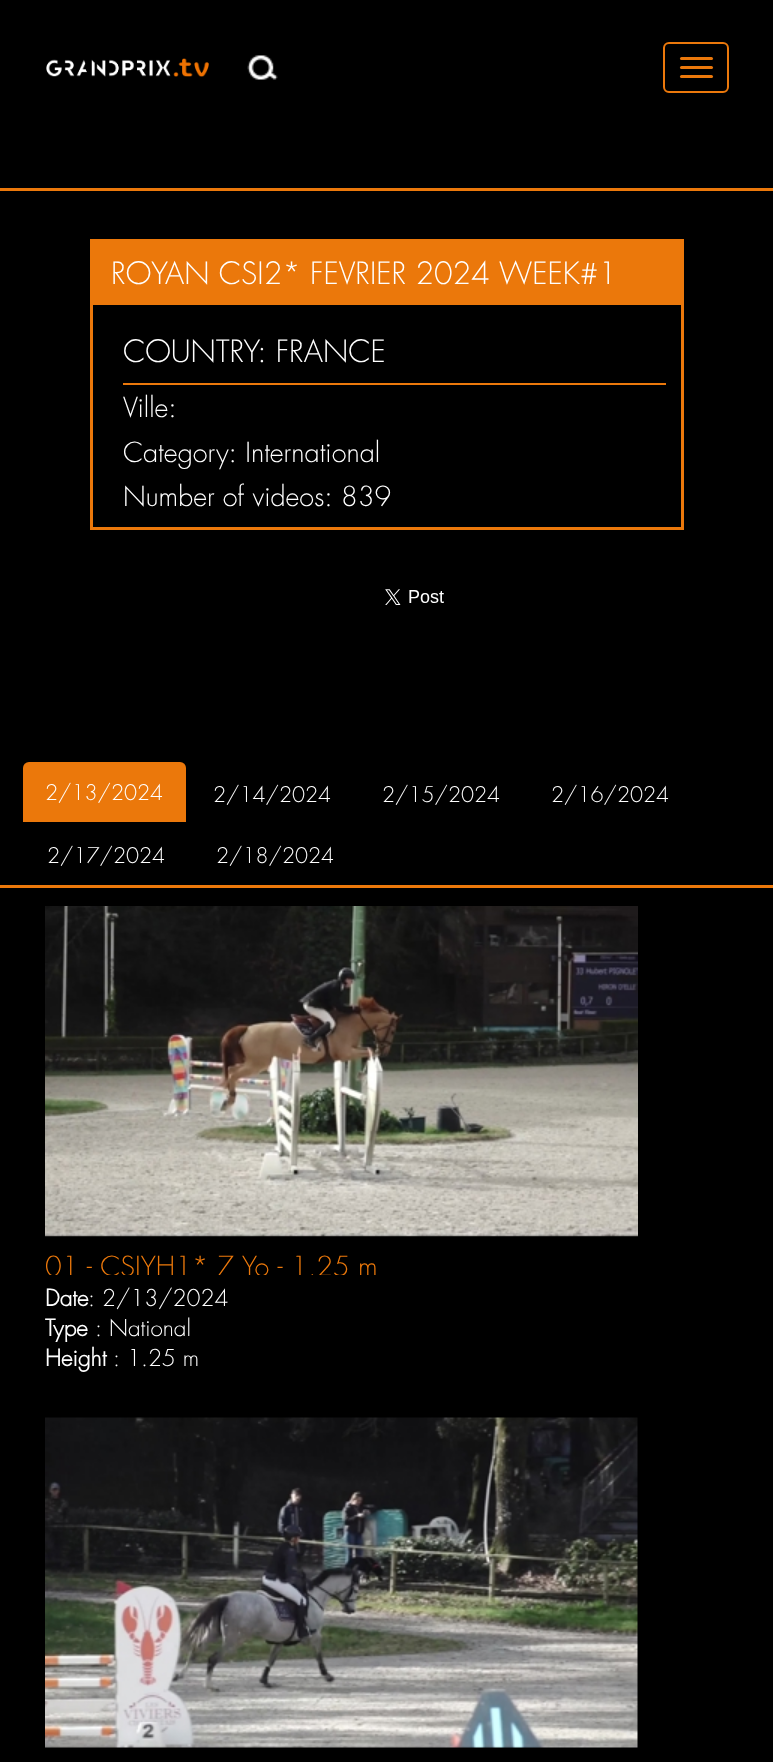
async function draw(canvas) {
  canvas.width = 773
  canvas.height = 1762
  const ctx = canvas.getContext('2d')
  ctx.miterLimit = 4
  ctx.fontKerning = 'normal'
  async function loadImage(src) {
    const img = new Image()
    img.src = src
    await img.decode()
    return img
  }

  ctx.fillStyle = '#000'
  ctx.fillRect(0, 0, 773, 1762)
  ctx.drawImage(await loadImage('image0.png'), 46, 58, 163, 19)
  ctx.drawImage(await loadImage('image1.png'), 247, 55, 31, 25)
  ctx.beginPath()
  ctx.roundRect(664, 43, 64, 49, 5)
  ctx.strokeStyle = '#eb780b'
  ctx.lineWidth = 2
  ctx.stroke()
  ctx.fillStyle = '#eb780b'
  ctx.beginPath()
  ctx.roundRect(680, 57, 33, 3, 1.5)
  ctx.fill()
  ctx.beginPath()
  ctx.roundRect(680, 66, 33, 3, 1.5)
  ctx.fill()
  ctx.beginPath()
  ctx.roundRect(680, 75, 33, 3, 1.5)
  ctx.fill()
  ctx.fillRect(0, 188, 773, 3)
  ctx.lineWidth = 3
  ctx.strokeRect(91.5, 240.5, 591, 288)
  ctx.fillRect(93, 242, 588, 63)
  ctx.font = '300 30px Futura'
  ctx.fillStyle = '#fff'
  ctx.fillText('ROYAN CSI2* FEVRIER 2024 WEEK#1', 111, 284)
  ctx.fillStyle = '#eb780b'
  ctx.fillRect(123, 383, 543, 2)
  ctx.fillStyle = '#fff'
  ctx.fillText('COUNTRY: FRANCE', 123, 362)
  ctx.font = '300 27px Futura'
  ctx.fillText('Ville:', 123, 417)
  ctx.fillText('Category: International', 123, 462)
  ctx.fillText('Number of videos: 839', 123, 506)
  ctx.drawImage(await loadImage('image2.png'), 385, 589, 59, 16)
  ctx.fillStyle = '#eb780b'
  ctx.fillRect(0, 885, 773, 3)
  ctx.beginPath()
  ctx.roundRect(23, 762, 163, 60, [6, 6, 0, 0])
  ctx.fill()
  ctx.font = '300 21px Futura'
  ctx.fillStyle = '#fff'
  ctx.fillText('2/13/2024', 45, 800)
  ctx.fillText('2/14/2024', 213, 802)
  ctx.fillText('2/15/2024', 382, 802)
  ctx.fillText('2/16/2024', 551, 802)
  ctx.fillText('2/17/2024', 47, 863)
  ctx.fillText('2/18/2024', 216, 863)
  ctx.drawImage(await loadImage('image3.png'), 45, 906, 593, 331)
  ctx.save()
  ctx.beginPath()
  ctx.rect(45, 1251, 593, 24)
  ctx.clip()
  ctx.font = '300 27px Futura'
  ctx.fillStyle = '#eb780b'
  ctx.fillText('01 - CSIYH1* 7 Yo - 1,25 m', 45, 1276)
  ctx.restore()
  ctx.font = 'bold 22.5px Futura'
  ctx.fillText('Date', 45, 1306)
  ctx.font = '300 22.5px Futura'
  ctx.fillText(': 2/13/2024', 88, 1306)
  ctx.font = 'bold 22.5px Futura'
  ctx.fillText('Type', 45, 1336)
  ctx.font = '300 22.5px Futura'
  ctx.fillText(': National', 95, 1336)
  ctx.font = 'bold 22.5px Futura'
  ctx.fillText('Height', 45, 1366)
  ctx.font = '300 22.5px Futura'
  ctx.fillText(': 1.25 m', 113, 1366)
  ctx.drawImage(await loadImage('image4.png'), 45, 1417, 593, 331)
}

draw(document.querySelector('canvas'))
